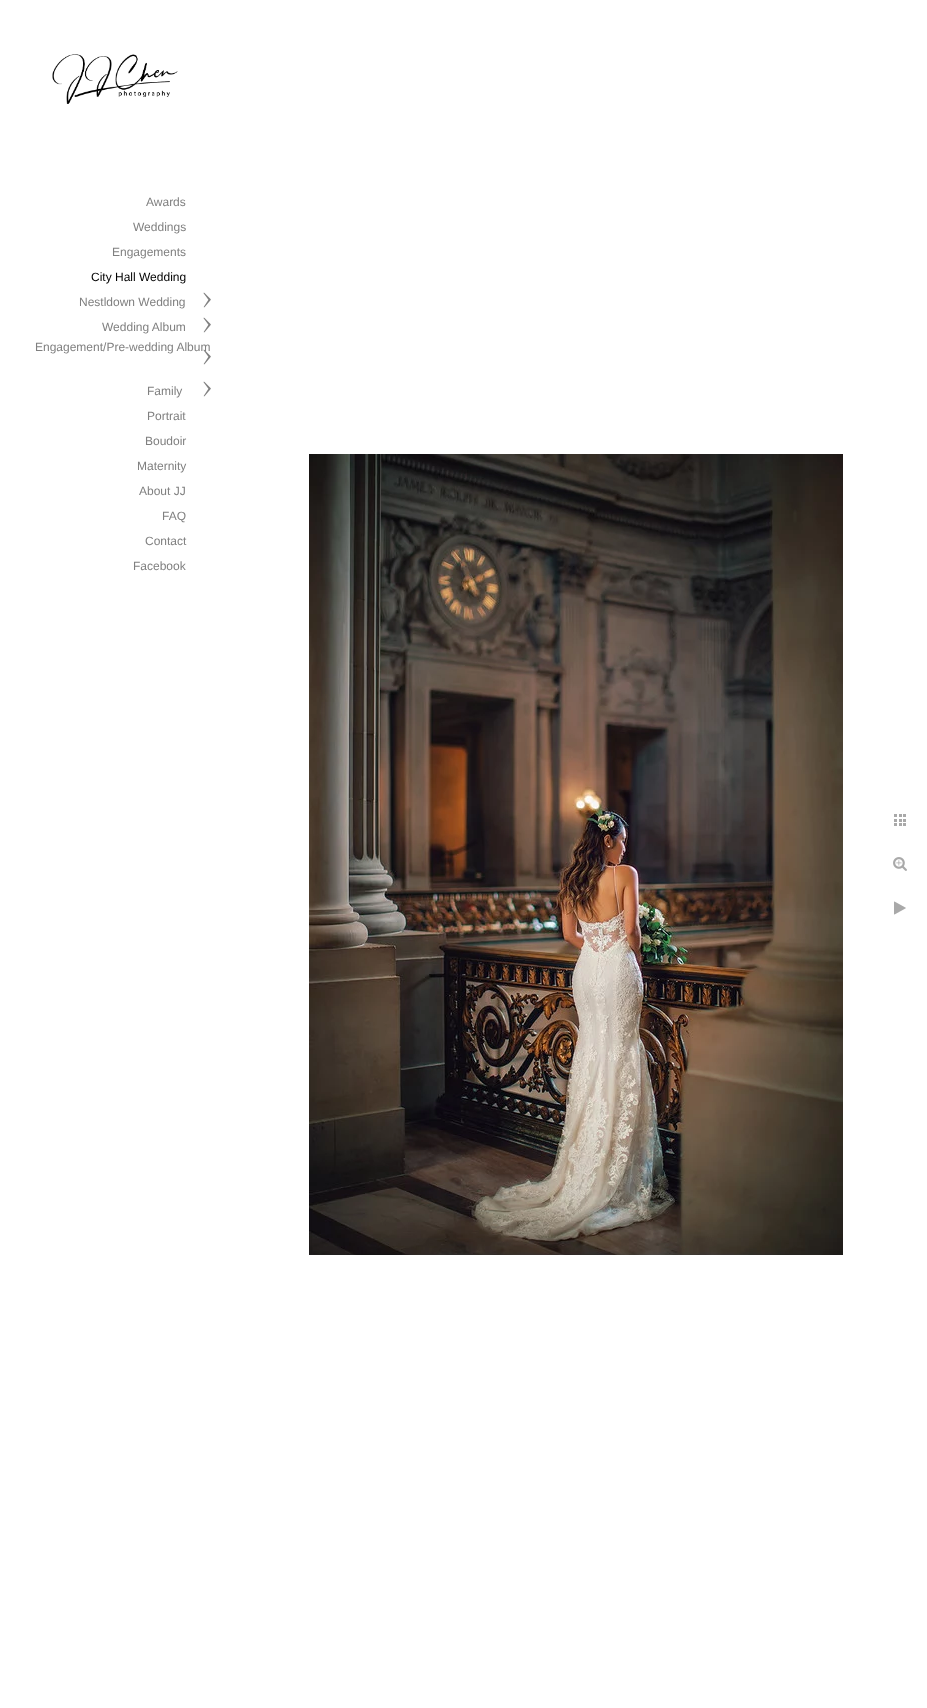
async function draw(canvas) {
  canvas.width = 927
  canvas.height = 1708
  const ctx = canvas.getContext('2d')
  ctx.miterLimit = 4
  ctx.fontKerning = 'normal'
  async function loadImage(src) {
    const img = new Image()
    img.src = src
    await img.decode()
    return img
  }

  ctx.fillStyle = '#fff'
  ctx.fillRect(0, 0, 927, 1708)
  ctx.drawImage(await loadImage('image0.png'), 52, 54, 126, 50)
  ctx.font = '12px Liberation Sans'
  ctx.fillStyle = '#808080'
  ctx.fillText('Awards', 146, 206)
  ctx.fillText('Weddings', 133, 231)
  ctx.fillText('Engagements', 112, 256)
  ctx.fillStyle = '#000'
  ctx.fillText('City Hall Wedding', 91, 281)
  ctx.fillStyle = '#808080'
  ctx.fillText('Nestldown Wedding', 79, 306)
  ctx.drawImage(await loadImage('image1.png'), 203, 292, 8, 16)
  ctx.fillText('Wedding Album', 102, 331)
  ctx.drawImage(await loadImage('image1.png'), 203, 317, 8, 16)
  ctx.fillText('Engagement/Pre-wedding Album', 35, 351)
  ctx.drawImage(await loadImage('image2.png'), 203, 349, 8, 16)
  ctx.fillText('Family', 147, 395)
  ctx.drawImage(await loadImage('image1.png'), 203, 381, 8, 16)
  ctx.fillText('Portrait', 147, 420)
  ctx.fillText('Boudoir', 145, 445)
  ctx.fillText('Maternity', 137, 470)
  ctx.fillText('About JJ', 139, 495)
  ctx.fillText('FAQ', 162, 520)
  ctx.fillText('Contact', 145, 545)
  ctx.fillText('Facebook', 133, 570)
  ctx.drawImage(await loadImage('image3.png'), 309, 454, 534, 801)
  ctx.drawImage(await loadImage('image4.png'), 894, 814, 12, 12)
  ctx.drawImage(await loadImage('image5.png'), 893, 857, 14, 14)
  ctx.drawImage(await loadImage('image6.png'), 894, 901, 12, 14)
}

draw(document.querySelector('canvas'))
